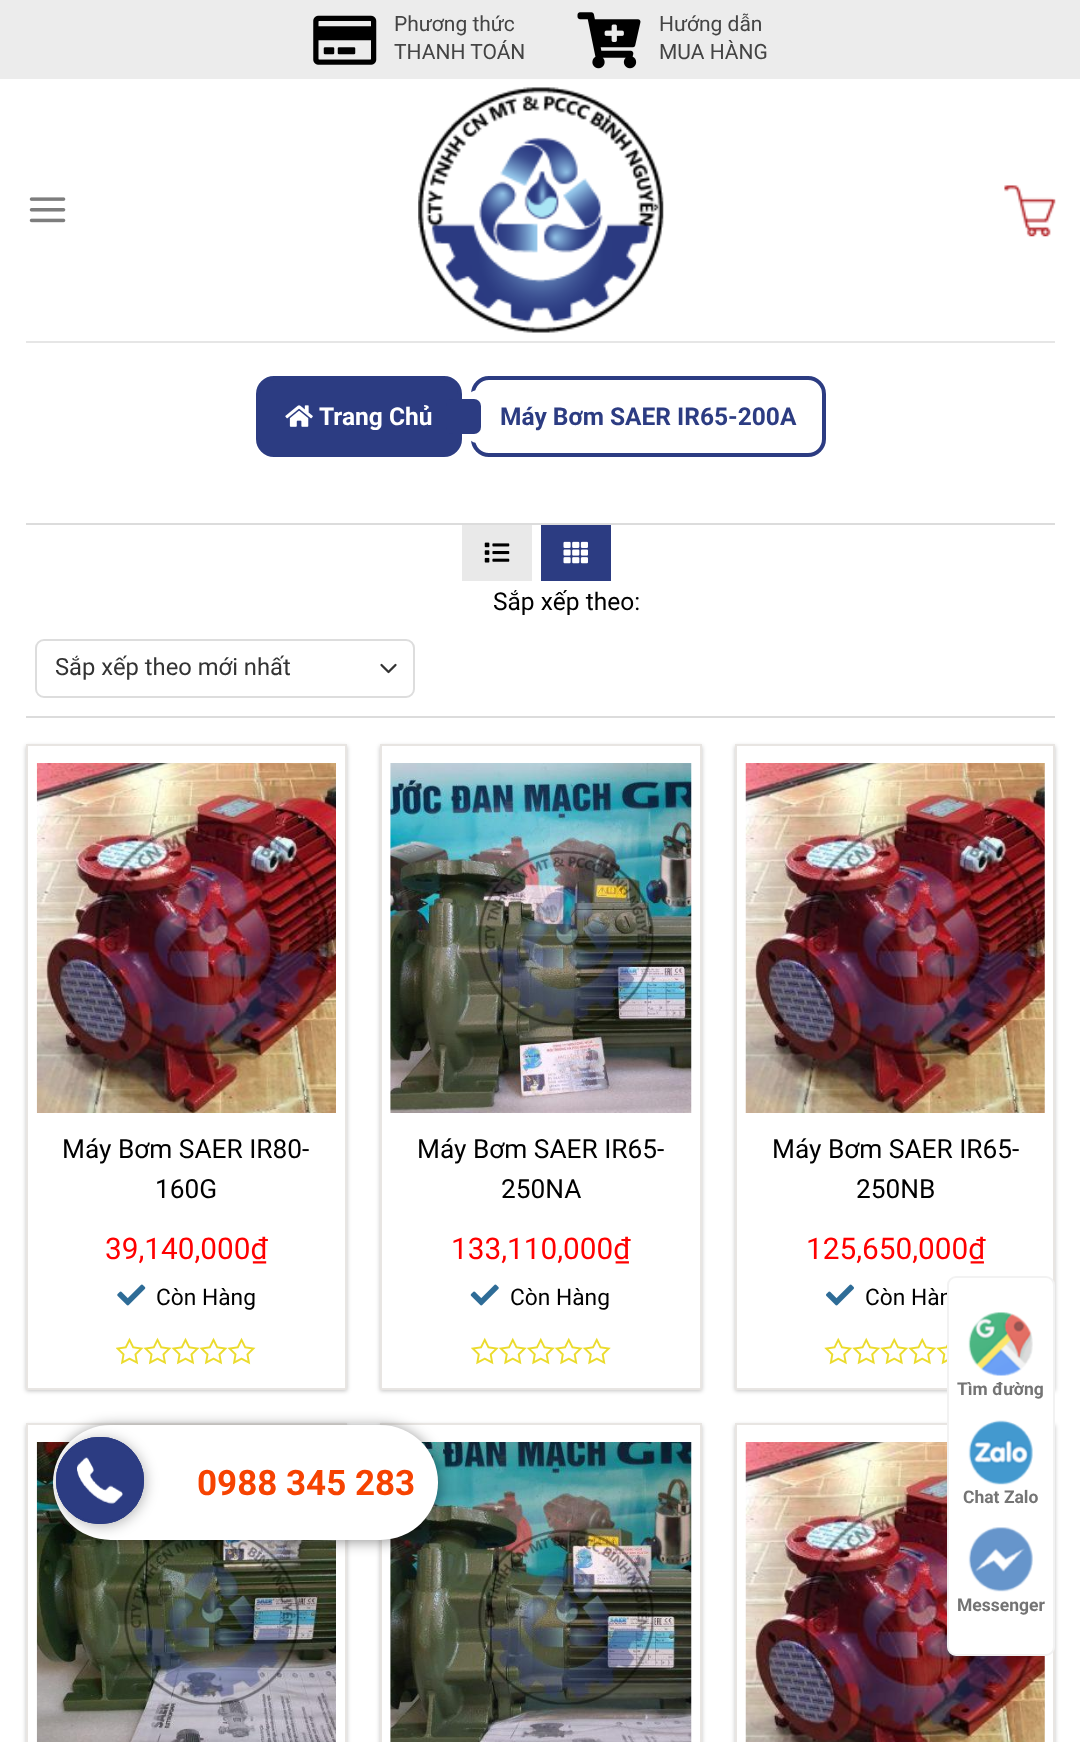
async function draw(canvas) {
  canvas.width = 1080
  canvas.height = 1742
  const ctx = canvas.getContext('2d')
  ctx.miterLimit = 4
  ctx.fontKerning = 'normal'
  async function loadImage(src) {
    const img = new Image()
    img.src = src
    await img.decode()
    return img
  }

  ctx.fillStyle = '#fff'
  ctx.fillRect(0, 0, 1080, 1742)
  ctx.fillStyle = '#ececec'
  ctx.fillRect(0, 0, 1080, 79)
  ctx.drawImage(await loadImage('image0.png'), 313, 15, 64, 50)
  ctx.font = '21px Roboto'
  ctx.fillStyle = '#444'
  ctx.fillText('Phương thức', 394, 31)
  ctx.fillText('THANH TOÁN', 394, 59)
  ctx.drawImage(await loadImage('image1.png'), 577, 12, 64, 57)
  ctx.fillText('Hướng dẫn', 659, 31)
  ctx.fillText('MUA HÀNG', 659, 59)
  ctx.drawImage(await loadImage('image2.png'), 29, 197, 37, 26)
  ctx.drawImage(await loadImage('image3.png'), 418, 87, 246, 246)
  ctx.drawImage(await loadImage('image4.png'), 1004, 185, 52, 52)
  ctx.fillStyle = '#e6e6e6'
  ctx.fillRect(26, 341, 1029, 2)
  ctx.fillStyle = '#2c3c82'
  ctx.beginPath()
  ctx.roundRect(258, 378, 202, 77, 16)
  ctx.fill()
  ctx.strokeStyle = '#2c3c82'
  ctx.lineWidth = 4
  ctx.stroke()
  ctx.drawImage(await loadImage('image5.png'), 285, 405, 28, 22)
  ctx.font = 'bold 24.5px Roboto'
  ctx.fillStyle = '#fff'
  ctx.fillText('Trang Chủ', 319, 425)
  ctx.beginPath()
  ctx.roundRect(473, 378, 351, 77, 16)
  ctx.stroke()
  ctx.beginPath()
  ctx.roundRect(466, 390, 31, 53, 12)
  ctx.fill()
  ctx.fillStyle = '#2c3c82'
  ctx.beginPath()
  ctx.roundRect(446, 399, 35, 35, 7)
  ctx.fill()
  ctx.fillText('Máy Bơm SAER IR65-200A', 500, 425)
  ctx.fillStyle = '#dcdcdc'
  ctx.fillRect(26, 523, 1029, 2)
  ctx.fillRect(26, 716, 1029, 2)
  ctx.fillStyle = '#e9e9e9'
  ctx.fillRect(462, 525, 70, 56)
  ctx.drawImage(await loadImage('image6.png'), 484, 542, 26, 21)
  ctx.fillStyle = '#2c3c82'
  ctx.fillRect(541, 525, 70, 56)
  ctx.drawImage(await loadImage('image7.png'), 563, 541, 25, 23)
  ctx.font = '24.5px Roboto'
  ctx.fillStyle = '#000'
  ctx.fillText('Sắp xếp theo:', 493, 610)
  ctx.beginPath()
  ctx.moveTo(381.5, 665)
  ctx.lineTo(388.5, 672)
  ctx.lineTo(395.5, 665)
  ctx.strokeStyle = '#333'
  ctx.lineWidth = 2.3
  ctx.lineCap = 'round'
  ctx.lineJoin = 'round'
  ctx.stroke()
  ctx.beginPath()
  ctx.roundRect(36, 640, 378, 57, 8)
  ctx.strokeStyle = '#ddd'
  ctx.lineWidth = 2
  ctx.lineJoin = 'miter'
  ctx.stroke()
  ctx.font = '23.75px Roboto'
  ctx.fillStyle = '#333'
  ctx.fillText('Sắp xếp theo mới nhất', 55, 675)
  ctx.fillStyle = '#0000003d'
  ctx.filter = 'blur(2px)'
  ctx.beginPath()
  ctx.rect(26, 746, 321, 645)
  ctx.fill()
  ctx.filter = 'none'
  ctx.fillStyle = '#fff'
  ctx.beginPath()
  ctx.rect(27, 745, 319, 644)
  ctx.fill()
  ctx.strokeStyle = '#e8e5e2'
  ctx.stroke()
  ctx.drawImage(await loadImage('image8.png'), 36, 763, 300, 350)
  ctx.font = '26.25px Roboto'
  ctx.fillStyle = '#000'
  ctx.fillText('Máy Bơm SAER IR80-', 62, 1158)
  ctx.fillText('160G', 155, 1198)
  ctx.font = '29.75px Roboto'
  ctx.fillStyle = '#f00'
  ctx.fillText('39,140,000₫', 105, 1259)
  ctx.drawImage(await loadImage('image9.png'), 117, 1284, 29, 22)
  ctx.font = '22.75px Roboto'
  ctx.fillStyle = '#000'
  ctx.fillText('Còn Hàng', 156, 1305)
  ctx.drawImage(await loadImage('image10.png'), 116, 1337, 140, 28)
  ctx.fillStyle = '#0000003d'
  ctx.filter = 'blur(2px)'
  ctx.beginPath()
  ctx.rect(380, 746, 322, 645)
  ctx.fill()
  ctx.filter = 'none'
  ctx.fillStyle = '#fff'
  ctx.beginPath()
  ctx.rect(381, 745, 320, 644)
  ctx.fill()
  ctx.stroke()
  ctx.drawImage(await loadImage('image11.png'), 390, 763, 302, 350)
  ctx.font = '26.25px Roboto'
  ctx.fillStyle = '#000'
  ctx.fillText('Máy Bơm SAER IR65-', 417, 1158)
  ctx.fillText('250NA', 501, 1198)
  ctx.font = '29.75px Roboto'
  ctx.fillStyle = '#f00'
  ctx.fillText('133,110,000₫', 451, 1259)
  ctx.drawImage(await loadImage('image12.png'), 470, 1284, 29, 22)
  ctx.font = '22.75px Roboto'
  ctx.fillStyle = '#000'
  ctx.fillText('Còn Hàng', 510, 1305)
  ctx.drawImage(await loadImage('image13.png'), 471, 1337, 140, 28)
  ctx.fillStyle = '#0000003d'
  ctx.filter = 'blur(2px)'
  ctx.beginPath()
  ctx.rect(735, 746, 320, 645)
  ctx.fill()
  ctx.filter = 'none'
  ctx.fillStyle = '#fff'
  ctx.beginPath()
  ctx.rect(736, 745, 318, 644)
  ctx.fill()
  ctx.stroke()
  ctx.drawImage(await loadImage('image14.png'), 745, 763, 300, 350)
  ctx.font = '26.25px Roboto'
  ctx.fillStyle = '#000'
  ctx.fillText('Máy Bơm SAER IR65-', 772, 1158)
  ctx.fillText('250NB', 856, 1198)
  ctx.font = '29.75px Roboto'
  ctx.fillStyle = '#f00'
  ctx.fillText('125,650,000₫', 806, 1259)
  ctx.drawImage(await loadImage('image15.png'), 826, 1284, 28, 22)
  ctx.font = '22.75px Roboto'
  ctx.fillStyle = '#000'
  ctx.fillText('Còn Hàn', 865, 1305)
  ctx.drawImage(await loadImage('image16.png'), 824, 1337, 123, 28)
  ctx.fillStyle = '#0000003d'
  ctx.filter = 'blur(2px)'
  ctx.beginPath()
  ctx.rect(26, 1425, 321, 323)
  ctx.fill()
  ctx.filter = 'none'
  ctx.fillStyle = '#fff'
  ctx.beginPath()
  ctx.rect(27, 1424, 319, 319)
  ctx.fill()
  ctx.stroke()
  ctx.drawImage(await loadImage('image17.png'), 36, 1442, 300, 300)
  ctx.fillStyle = '#0000003d'
  ctx.filter = 'blur(2px)'
  ctx.beginPath()
  ctx.rect(380, 1425, 322, 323)
  ctx.fill()
  ctx.filter = 'none'
  ctx.fillStyle = '#fff'
  ctx.beginPath()
  ctx.rect(381, 1424, 320, 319)
  ctx.fill()
  ctx.stroke()
  ctx.drawImage(await loadImage('image18.png'), 390, 1442, 302, 300)
  ctx.save()
  ctx.beginPath()
  ctx.moveTo(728, 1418)
  ctx.lineTo(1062, 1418)
  ctx.lineTo(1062, 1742)
  ctx.lineTo(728, 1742)
  ctx.closePath()
  ctx.moveTo(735, 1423)
  ctx.lineTo(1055, 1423)
  ctx.lineTo(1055, 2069)
  ctx.lineTo(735, 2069)
  ctx.closePath()
  ctx.clip('evenodd')
  ctx.fillStyle = '#0000003d'
  ctx.filter = 'blur(2px)'
  ctx.beginPath()
  ctx.rect(735, 1425, 320, 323)
  ctx.fill()
  ctx.filter = 'none'
  ctx.restore()
  ctx.strokeRect(736, 1424, 318, 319)
  ctx.drawImage(await loadImage('image19.png'), 745, 1442, 300, 300)
  ctx.fillStyle = '#00000066'
  ctx.filter = 'blur(7px)'
  ctx.beginPath()
  ctx.roundRect(54, 1426, 385, 116, 58)
  ctx.fill()
  ctx.filter = 'none'
  ctx.fillStyle = '#fff'
  ctx.beginPath()
  ctx.roundRect(53, 1425, 385, 115, 57.5)
  ctx.fill()
  ctx.fillStyle = '#0000004d'
  ctx.filter = 'blur(7px)'
  ctx.beginPath()
  ctx.roundRect(58, 1439, 87, 87, 43.5)
  ctx.fill()
  ctx.filter = 'none'
  ctx.fillStyle = '#2c3c82'
  ctx.beginPath()
  ctx.roundRect(56, 1437, 88, 87, 43.5)
  ctx.fill()
  ctx.drawImage(await loadImage('image20.png'), 77, 1457, 46, 47)
  ctx.beginPath()
  ctx.roundRect(57, 1438, 86, 85, 42.5)
  ctx.strokeStyle = '#2c3c82'
  ctx.stroke()
  ctx.beginPath()
  ctx.roundRect(57, 1438, 86, 85, 42.5)
  ctx.stroke()
  ctx.font = 'bold 35px Roboto'
  ctx.fillStyle = '#f64301'
  ctx.fillText('0988 345 283', 197, 1495)
  ctx.fillStyle = '#fff'
  ctx.beginPath()
  ctx.roundRect(948, 1277, 106, 378, 8)
  ctx.fill()
  ctx.strokeStyle = '#f2f2f2'
  ctx.stroke()
  ctx.drawImage(await loadImage('image21.png'), 968, 1312, 65, 64)
  ctx.font = 'bold 17.5px Roboto'
  ctx.fillStyle = '#747474'
  ctx.fillText('Tìm đường', 957, 1395)
  ctx.drawImage(await loadImage('image22.png'), 968, 1420, 65, 65)
  ctx.fillText('Chat Zalo', 963, 1503)
  ctx.drawImage(await loadImage('image23.png'), 968, 1527, 65, 65)
  ctx.fillText('Messenger', 957, 1611)
}

draw(document.querySelector('canvas'))
